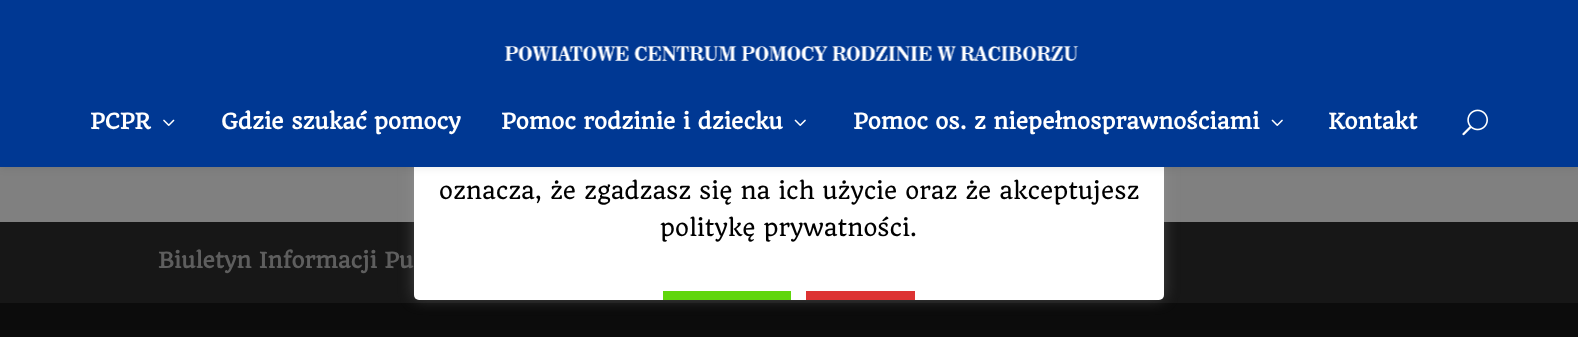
async function draw(canvas) {
  canvas.width = 1578
  canvas.height = 337
  const ctx = canvas.getContext('2d')
  ctx.miterLimit = 4
  ctx.fontKerning = 'normal'
  async function loadImage(src) {
    const img = new Image()
    img.src = src
    await img.decode()
    return img
  }

  ctx.fillStyle = '#808080'
  ctx.fillRect(0, 0, 1578, 337)
  ctx.fillStyle = '#171717'
  ctx.fillRect(0, 222, 1578, 81)
  ctx.fillStyle = '#0c0c0c'
  ctx.fillRect(0, 303, 1578, 34)
  ctx.fillStyle = '#acabab4d'
  ctx.filter = 'blur(7.5px)'
  ctx.beginPath()
  ctx.roundRect(414, 21, 750, 278, 5)
  ctx.fill()
  ctx.filter = 'none'
  ctx.fillStyle = '#fff'
  ctx.beginPath()
  ctx.roundRect(414, 23, 750, 277, 5)
  ctx.fill()
  ctx.fillStyle = '#0000001a'
  ctx.filter = 'blur(5px)'
  ctx.beginPath()
  ctx.rect(0, 0, 1578, 167)
  ctx.fill()
  ctx.filter = 'none'
  ctx.fillStyle = '#003893'
  ctx.fillRect(0, 0, 1578, 167)
  ctx.drawImage(await loadImage('image0.png'), 504, 46, 575, 15)
  ctx.font = 'bold 21px Quando'
  ctx.fillStyle = '#fff'
  ctx.fillText('PCPR', 90, 129)
  ctx.drawImage(await loadImage('image1.png'), 163, 119, 12, 7)
  ctx.fillText('Gdzie szukać pomocy', 221, 129)
  ctx.fillText('Pomoc rodzinie i dziecku', 501, 129)
  ctx.drawImage(await loadImage('image2.png'), 794, 119, 12, 7)
  ctx.fillText('Pomoc os. z niepełnosprawnościami', 853, 129)
  ctx.drawImage(await loadImage('image2.png'), 1271, 119, 12, 7)
  ctx.fillText('Kontakt', 1328, 129)
  ctx.drawImage(await loadImage('image3.png'), 1462, 109, 26, 27)
  ctx.fillStyle = '#5e5e5e'
  ctx.fillText('Biuletyn Informacji Pu', 158, 268)
  ctx.font = '22.5px Quando'
  ctx.fillStyle = '#000'
  ctx.fillText('oznacza, że zgadzasz się na ich użycie oraz że akceptujesz', 439, 199)
  ctx.fillText('politykę prywatności.', 660, 236)
  ctx.fillStyle = '#60d60c'
  ctx.fillRect(663, 291, 128, 9)
  ctx.fillStyle = '#d33'
  ctx.fillRect(806, 291, 109, 9)
}

draw(document.querySelector('canvas'))
